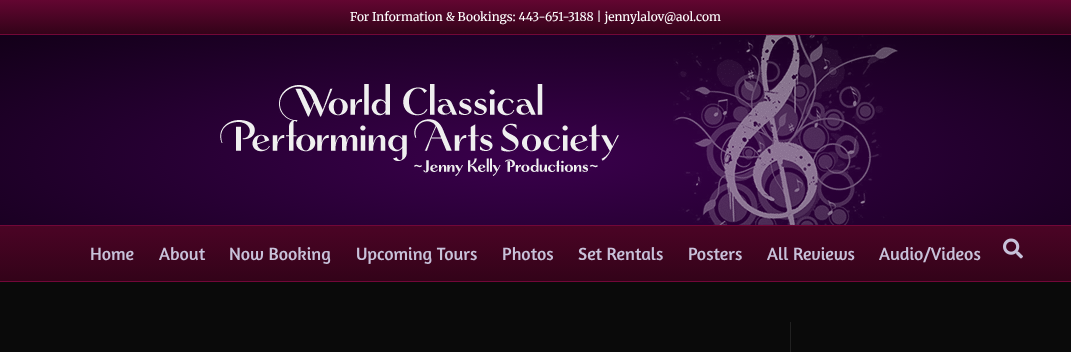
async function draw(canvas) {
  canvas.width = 1071
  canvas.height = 352
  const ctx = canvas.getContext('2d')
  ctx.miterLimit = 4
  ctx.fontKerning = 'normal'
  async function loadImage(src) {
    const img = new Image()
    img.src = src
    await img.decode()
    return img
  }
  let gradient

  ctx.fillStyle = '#0a0a0a'
  ctx.fillRect(0, 0, 1071, 352)
  gradient = ctx.createLinearGradient(536, 0, 536, 34)
  gradient.addColorStop(0, '#630631')
  gradient.addColorStop(1, '#330319')
  ctx.fillStyle = gradient
  ctx.fillRect(0, 0, 1071, 34)
  ctx.fillStyle = '#720738'
  ctx.fillRect(0, 34, 1071, 1)
  ctx.font = '12px Merriweather'
  ctx.fillStyle = '#fff'
  ctx.fillText('For Information & Bookings: 443-651-3188 | jennylalov@aol.com', 350, 21)
  gradient = ctx.createRadialGradient(536, 687.79, 0, 536, 687.79, 757)
  gradient.addColorStop(0, '#3a004c')
  gradient.addColorStop(1, '#130019')
  ctx.fillStyle = gradient
  ctx.beginPath()
  ctx.rect(0, 35, 1071, 190)
  ctx.save()
  ctx.clip()
  ctx.scale(1, 175 / 757)
  ctx.fillRect(0, 0, 1071, 1523)
  ctx.restore()
  ctx.drawImage(await loadImage('image0.png'), 220, 35, 678, 190)
  gradient = ctx.createLinearGradient(536, 226, 536, 281)
  gradient.addColorStop(0, '#4b0425')
  gradient.addColorStop(1, '#330319')
  ctx.fillStyle = gradient
  ctx.fillRect(0, 226, 1071, 55)
  ctx.fillStyle = '#720738'
  ctx.fillRect(0, 225, 1071, 1)
  ctx.fillRect(0, 281, 1071, 1)
  ctx.font = '18px Amaranth'
  ctx.fillStyle = '#c8c2da'
  ctx.fillText('Home', 90, 260)
  ctx.fillText('About', 159, 260)
  ctx.fillText('Now Booking', 229, 260)
  ctx.fillText('Upcoming Tours', 356, 260)
  ctx.fillText('Photos', 502, 260)
  ctx.fillText('Set Rentals', 578, 260)
  ctx.fillText('Posters', 688, 260)
  ctx.fillText('All Reviews', 767, 260)
  ctx.fillText('Audio/Videos', 879, 260)
  ctx.drawImage(await loadImage('image1.png'), 1003, 238, 20, 21)
  ctx.fillStyle = '#212121'
  ctx.fillRect(790, 322, 1, 30)
}

draw(document.querySelector('canvas'))
